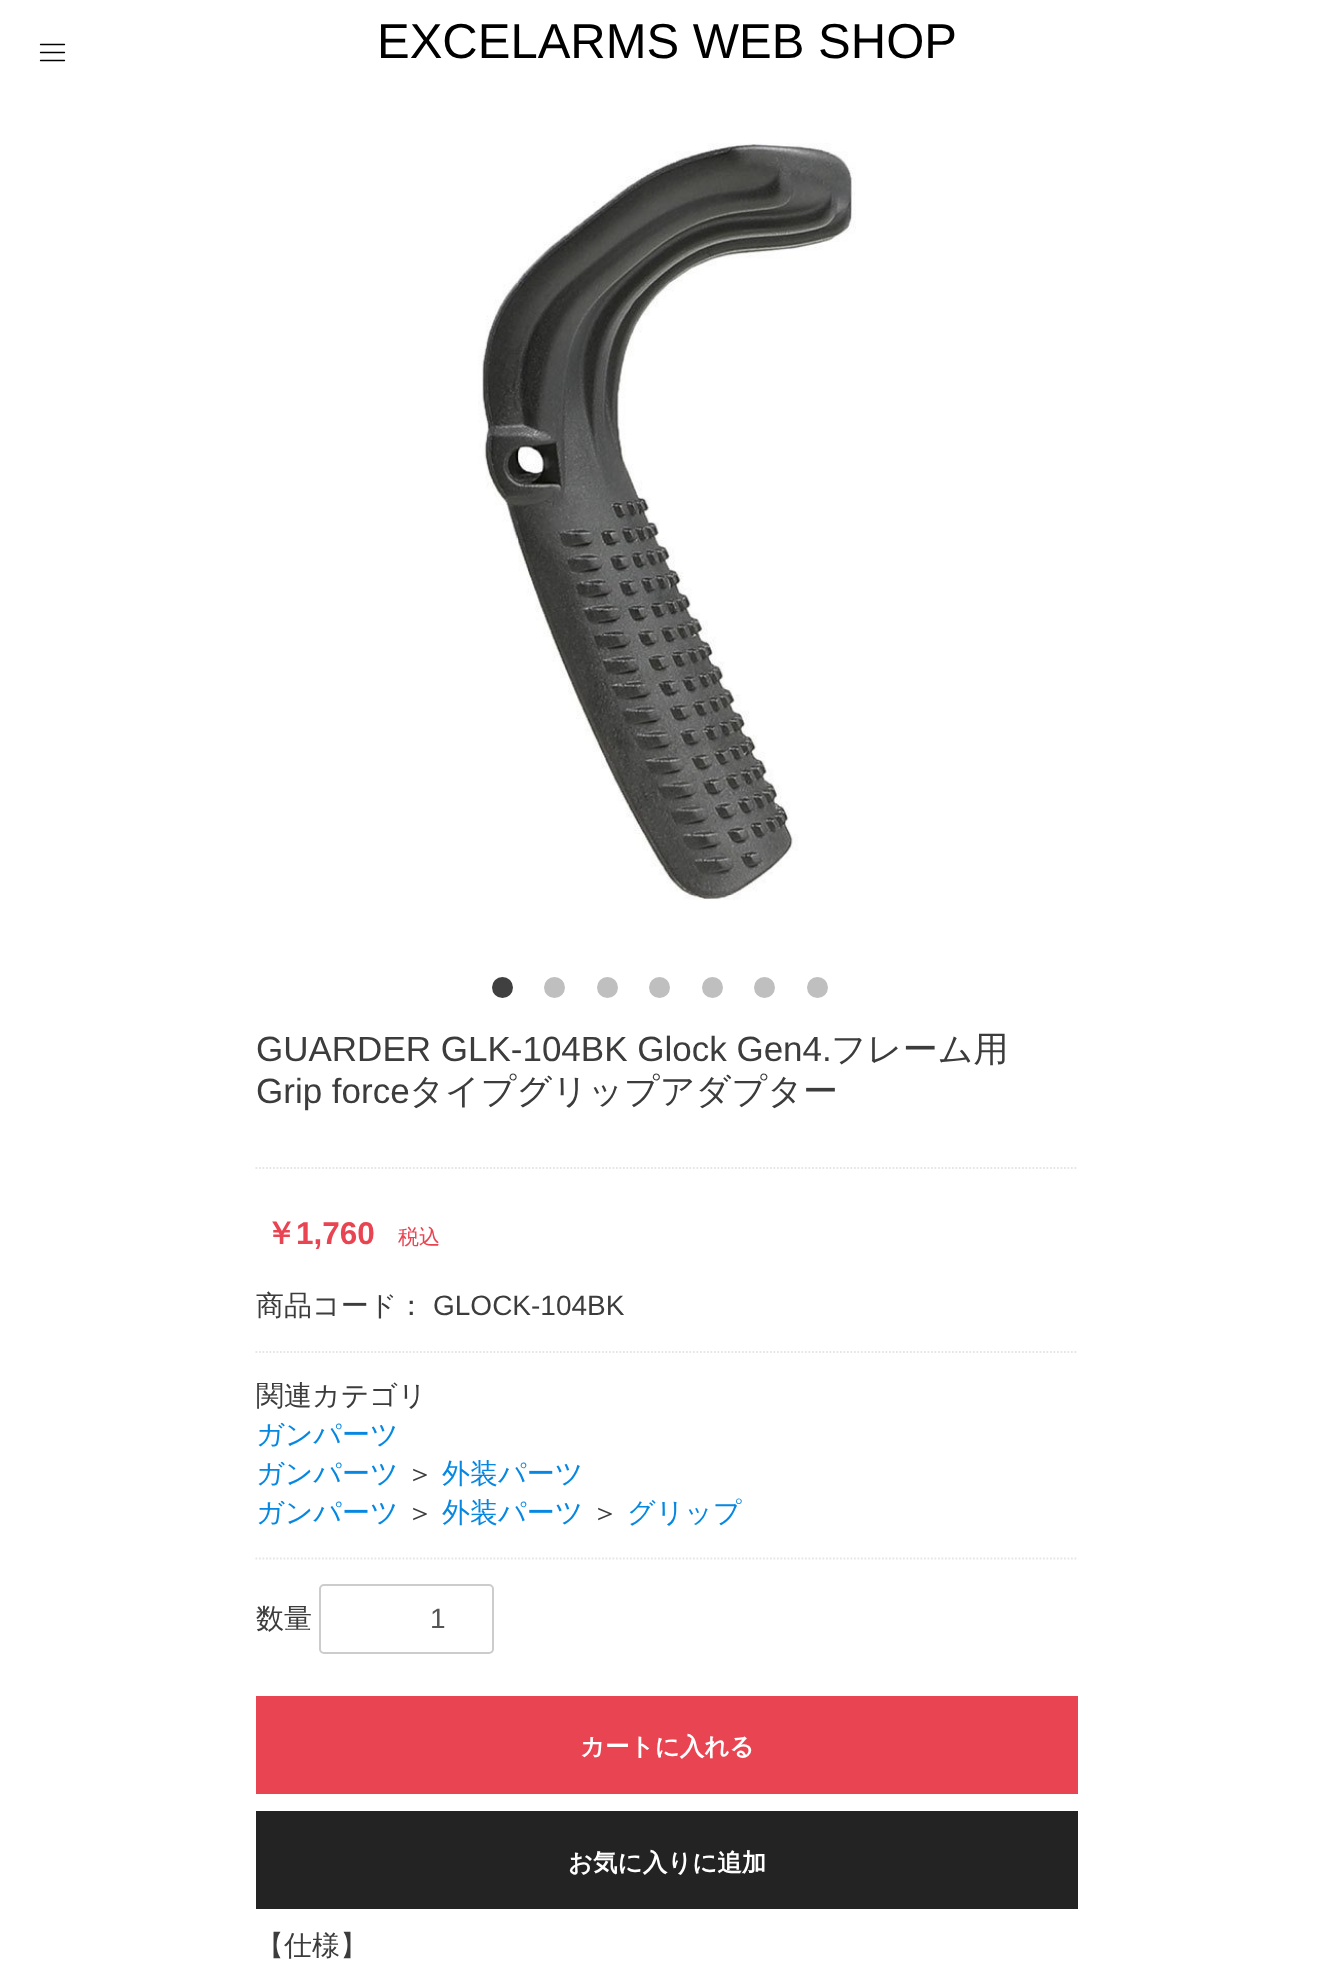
async function draw(canvas) {
  canvas.width = 1332
  canvas.height = 1983
  const ctx = canvas.getContext('2d')
  ctx.miterLimit = 4
  ctx.fontKerning = 'normal'
  async function loadImage(src) {
    const img = new Image()
    img.src = src
    await img.decode()
    return img
  }

  ctx.fillStyle = '#fff'
  ctx.fillRect(0, 0, 1332, 1983)
  ctx.beginPath()
  ctx.moveTo(40.5, 52.5)
  ctx.lineTo(64.5, 52.5)
  ctx.moveTo(40.5, 44.5)
  ctx.lineTo(64.5, 44.5)
  ctx.moveTo(40.5, 60.5)
  ctx.lineTo(64.5, 60.5)
  ctx.strokeStyle = '#000'
  ctx.lineWidth = 1.3
  ctx.lineCap = 'round'
  ctx.lineJoin = 'round'
  ctx.stroke()
  ctx.font = '49px Liberation Sans'
  ctx.fillStyle = '#000'
  ctx.fillText('EXCELARMS WEB SHOP', 377, 58)
  ctx.drawImage(await loadImage('image0.png'), 478, 143, 378, 757)
  ctx.fillStyle = '#404040'
  ctx.beginPath()
  ctx.arc(502.5, 987.5, 10.5, 0, 2 * Math.PI)
  ctx.fill()
  ctx.fillStyle = '#bfbfbf'
  ctx.beginPath()
  ctx.arc(554.5, 987.5, 10.5, 0, 2 * Math.PI)
  ctx.fill()
  ctx.beginPath()
  ctx.arc(607.5, 987.5, 10.5, 0, 2 * Math.PI)
  ctx.fill()
  ctx.beginPath()
  ctx.arc(659.5, 987.5, 10.5, 0, 2 * Math.PI)
  ctx.fill()
  ctx.beginPath()
  ctx.arc(712.5, 987.5, 10.5, 0, 2 * Math.PI)
  ctx.fill()
  ctx.beginPath()
  ctx.arc(764.5, 987.5, 10.5, 0, 2 * Math.PI)
  ctx.fill()
  ctx.beginPath()
  ctx.arc(817.5, 987.5, 10.5, 0, 2 * Math.PI)
  ctx.fill()
  ctx.font = '35px Liberation Sans'
  ctx.fillStyle = '#3c3c3c'
  ctx.fillText('GUARDER GLK-104BK Glock Gen4.', 256, 1061)
  ctx.font = '500 35px WenQuanYi Zen Hei'
  ctx.fillText('フレーム用', 831, 1061)
  ctx.font = '35px Liberation Sans'
  ctx.fillText('Grip force', 256, 1103)
  ctx.font = '500 35px WenQuanYi Zen Hei'
  ctx.fillText('タイプグリップアダプター', 409, 1103)
  ctx.beginPath()
  ctx.moveTo(255.5, 1168)
  ctx.lineTo(1078, 1168)
  ctx.strokeStyle = '#e6e6e6'
  ctx.lineWidth = 1.8
  ctx.lineCap = 'butt'
  ctx.lineJoin = 'miter'
  ctx.setLineDash([1.75, 1.75])
  ctx.stroke()
  ctx.font = 'bold 31.5px WenQuanYi Zen Hei'
  ctx.fillStyle = '#e94451'
  ctx.fillText('￥', 265, 1244)
  ctx.font = 'bold 31.5px Liberation Sans'
  ctx.fillText('1,760', 296, 1244)
  ctx.font = '500 21px WenQuanYi Zen Hei'
  ctx.fillText('税込', 398, 1244)
  ctx.beginPath()
  ctx.moveTo(255.5, 1352)
  ctx.lineTo(1078, 1352)
  ctx.stroke()
  ctx.font = '500 28px WenQuanYi Zen Hei'
  ctx.fillStyle = '#3c3c3c'
  ctx.fillText('商品コード：', 256, 1315)
  ctx.font = '28px Liberation Sans'
  ctx.fillText('GLOCK-104BK', 433, 1315)
  ctx.beginPath()
  ctx.moveTo(255.5, 1558.5)
  ctx.lineTo(1078, 1558.5)
  ctx.stroke()
  ctx.font = '500 28px WenQuanYi Zen Hei'
  ctx.fillText('関連カテゴリ', 256, 1405)
  ctx.fillStyle = '#0688e2'
  ctx.fillText('ガンパーツ', 256, 1444)
  ctx.fillText('ガンパーツ', 256, 1483)
  ctx.fillStyle = '#3c3c3c'
  ctx.fillText('＞', 406, 1483)
  ctx.fillStyle = '#0688e2'
  ctx.fillText('外装パーツ', 442, 1483)
  ctx.fillText('ガンパーツ', 256, 1522)
  ctx.fillStyle = '#3c3c3c'
  ctx.fillText('＞', 406, 1522)
  ctx.fillStyle = '#0688e2'
  ctx.fillText('外装パーツ', 442, 1522)
  ctx.fillStyle = '#3c3c3c'
  ctx.fillText('＞', 591, 1522)
  ctx.fillStyle = '#0688e2'
  ctx.fillText('グリップ', 627, 1522)
  ctx.fillStyle = '#3c3c3c'
  ctx.fillText('数量', 256, 1628)
  ctx.beginPath()
  ctx.roundRect(320, 1585, 173, 68, 4)
  ctx.strokeStyle = '#ccc'
  ctx.lineWidth = 2
  ctx.setLineDash([])
  ctx.stroke()
  ctx.font = '28px Liberation Sans'
  ctx.fillStyle = '#555'
  ctx.fillText('1', 430, 1628)
  ctx.fillStyle = '#e94451'
  ctx.fillRect(256, 1696, 822, 98)
  ctx.font = 'bold 24.5px WenQuanYi Zen Hei'
  ctx.fillStyle = '#fff'
  ctx.fillText('カートに入れる', 580, 1755)
  ctx.fillStyle = '#232323'
  ctx.fillRect(256, 1811, 822, 98)
  ctx.fillStyle = '#fff'
  ctx.fillText('お気に入りに追加', 568, 1871)
  ctx.font = '500 28px WenQuanYi Zen Hei'
  ctx.fillStyle = '#3c3c3c'
  ctx.fillText('【仕様】', 256, 1955)
}

draw(document.querySelector('canvas'))
